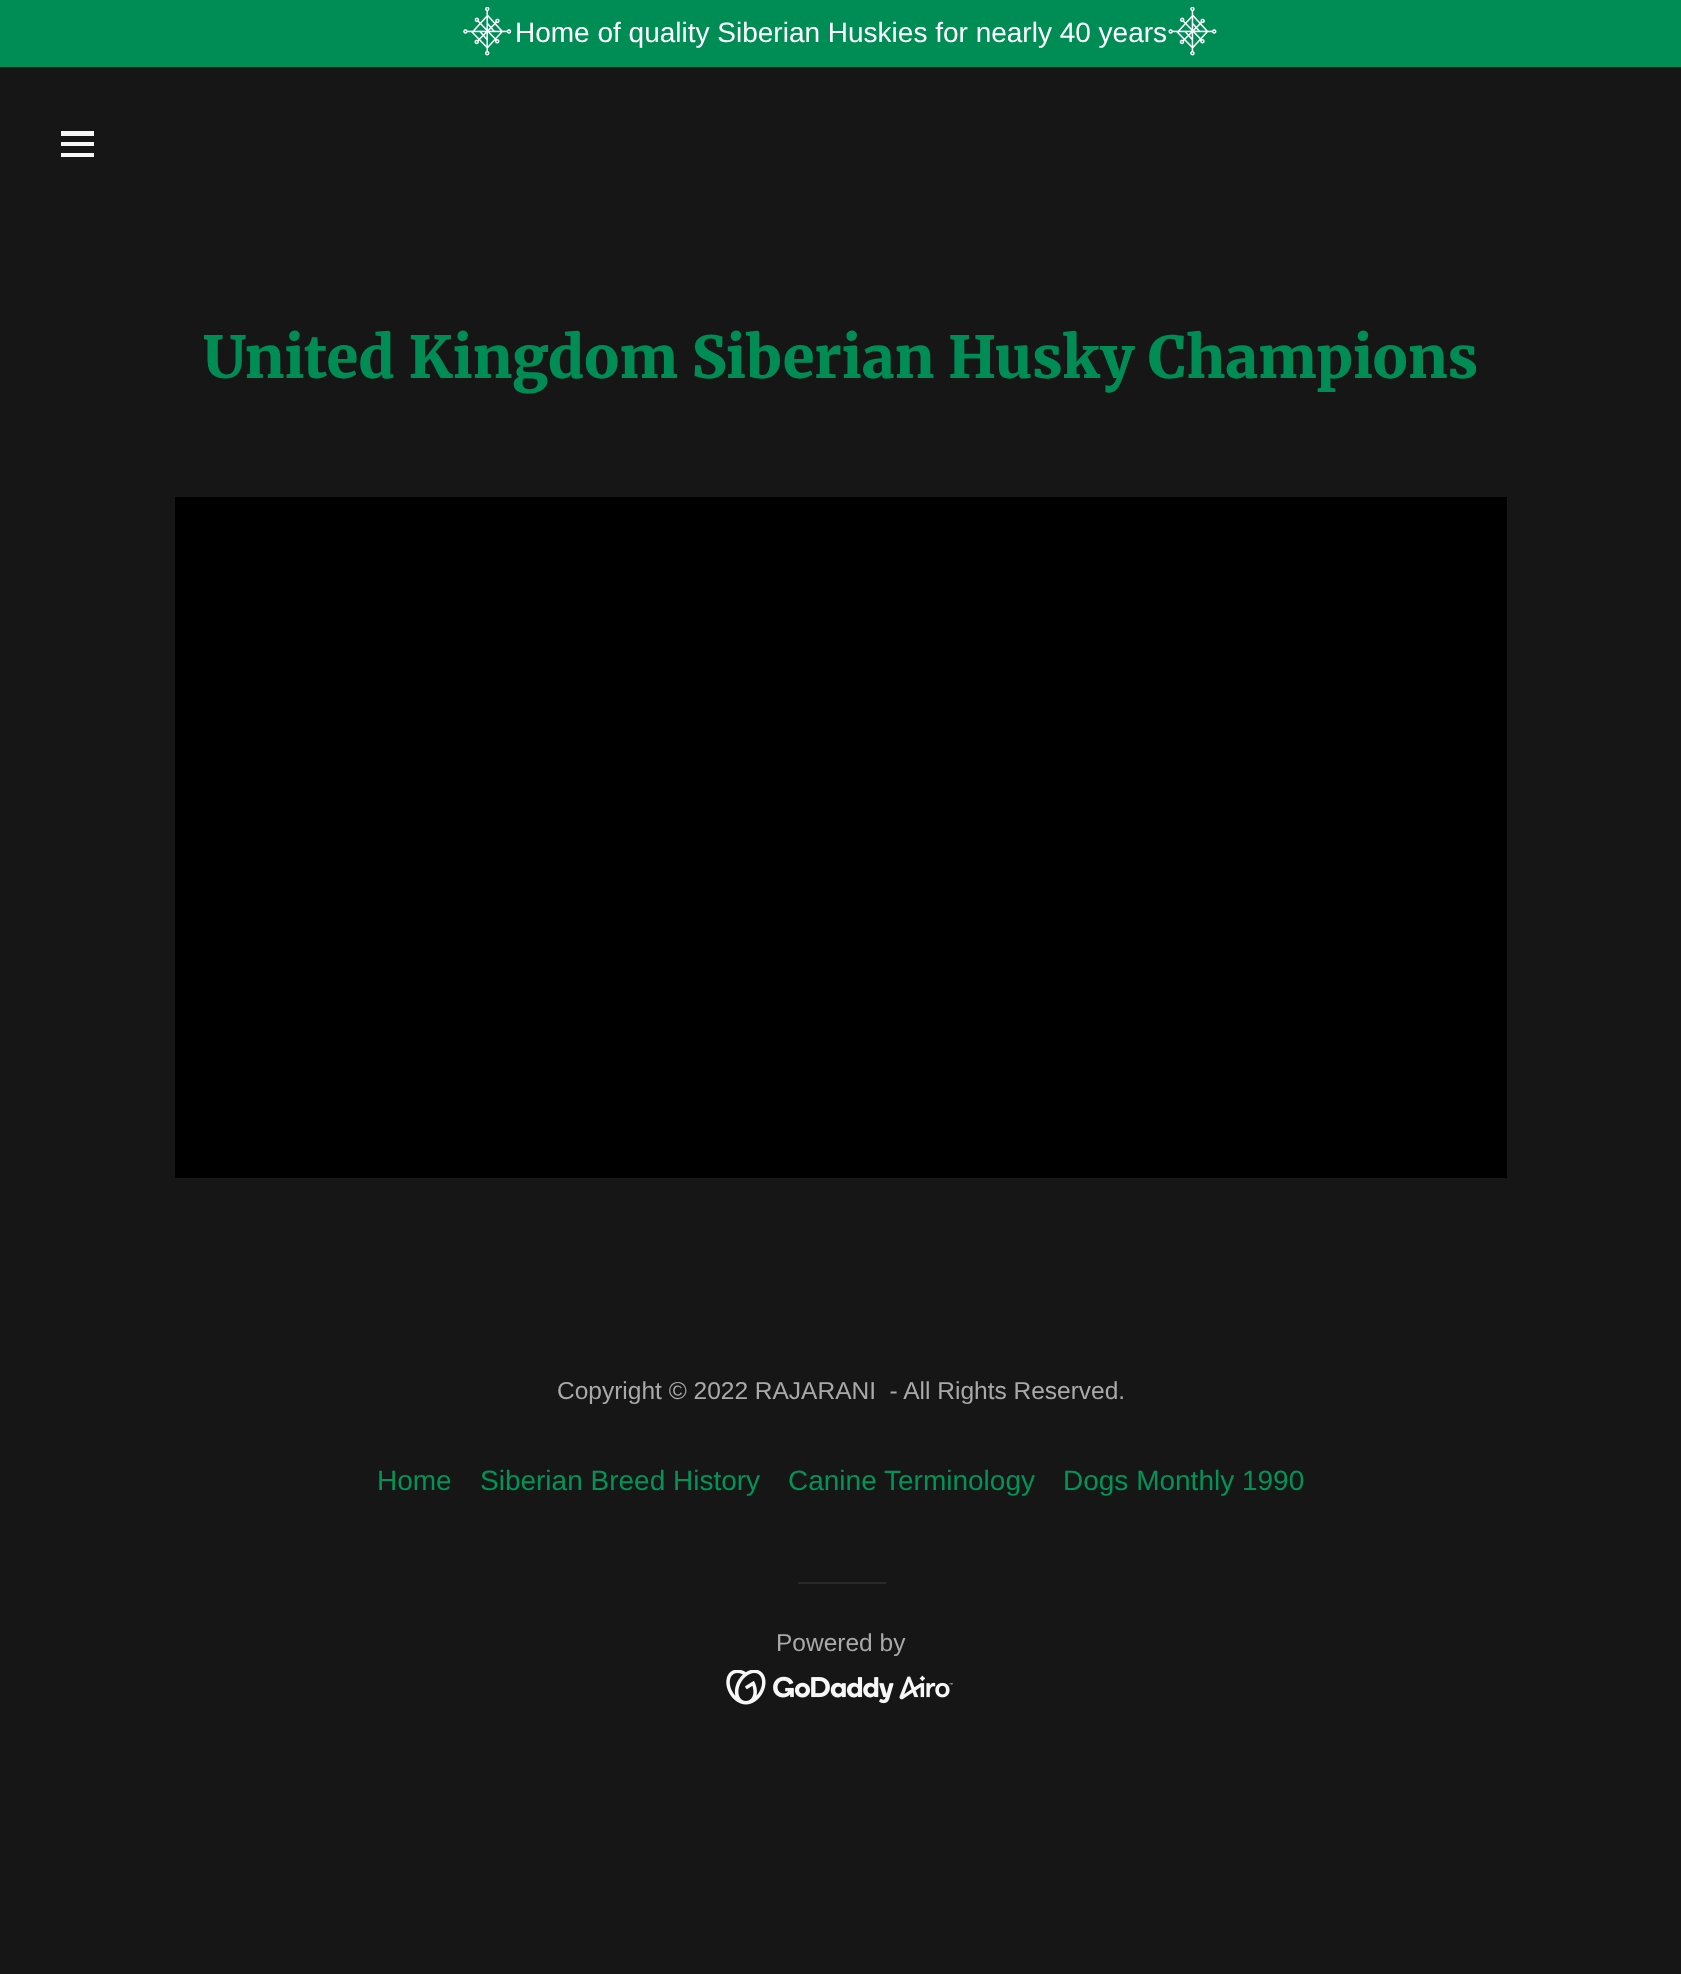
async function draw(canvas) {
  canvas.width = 1681
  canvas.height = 1974
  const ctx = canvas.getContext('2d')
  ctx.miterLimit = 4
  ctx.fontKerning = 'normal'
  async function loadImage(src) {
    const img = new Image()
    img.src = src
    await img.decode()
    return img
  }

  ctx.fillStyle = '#161616'
  ctx.fillRect(0, 0, 1681, 1974)
  ctx.fillStyle = '#008d55'
  ctx.fillRect(0, 0, 1681, 67)
  ctx.drawImage(await loadImage('image0.png'), 463, 7, 49, 49)
  ctx.font = '28px Liberation Sans'
  ctx.fillStyle = '#fff'
  ctx.fillText('Home of quality Siberian Huskies for nearly 40 years', 515, 42)
  ctx.drawImage(await loadImage('image1.png'), 1168, 7, 49, 49)
  ctx.fillStyle = '#f7f7f7'
  ctx.fillRect(61, 131, 33, 5)
  ctx.fillRect(61, 142, 33, 4)
  ctx.fillRect(61, 153, 33, 4)
  ctx.font = '300 57.75px Merriweather'
  ctx.fillStyle = '#008d55'
  ctx.fillText('United Kingdom Siberian Husky Champions', 203, 378)
  ctx.fillStyle = '#000'
  ctx.fillRect(175, 497, 1332, 681)
  ctx.font = '24.5px Liberation Sans'
  ctx.fillStyle = '#a9a9a9'
  ctx.fillText('Copyright © 2022 RAJARANI  - All Rights Reserved.', 557, 1399)
  ctx.font = '28px Liberation Sans'
  ctx.fillStyle = '#009459'
  ctx.fillText('Home', 377, 1490)
  ctx.fillText('Siberian Breed History', 480, 1490)
  ctx.fillText('Canine Terminology', 788, 1490)
  ctx.fillText('Dogs Monthly 1990', 1063, 1490)
  ctx.fillStyle = '#2a2a2a'
  ctx.fillRect(798, 1582, 88, 2)
  ctx.font = '24.5px Liberation Sans'
  ctx.fillStyle = '#a9a9a9'
  ctx.fillText('Powered by', 776, 1651)
  ctx.drawImage(await loadImage('image2.png'), 726, 1670, 227, 35)
}

draw(document.querySelector('canvas'))
